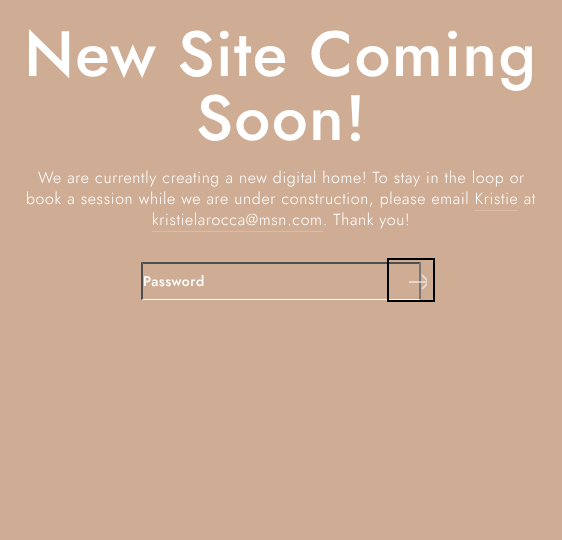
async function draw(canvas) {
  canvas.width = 562
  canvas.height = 540
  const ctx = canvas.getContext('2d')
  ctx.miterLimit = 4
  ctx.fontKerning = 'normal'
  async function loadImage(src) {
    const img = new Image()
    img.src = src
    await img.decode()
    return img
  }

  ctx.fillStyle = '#cfad95'
  ctx.fillRect(0, 0, 562, 540)
  ctx.letterSpacing = '1.25px'
  ctx.font = '500 64px Jost'
  ctx.fillStyle = '#fff'
  ctx.fillText('New Site Coming', 24, 76)
  ctx.fillText('Soon!', 196, 140)
  ctx.letterSpacing = '0.65px'
  ctx.font = '300 16px Jost'
  ctx.fillText('We are currently creating a new digital home! To stay in the loop or', 38, 183)
  ctx.fillText('book a session while we are under construction, please email Kristie at', 26, 204)
  ctx.fillStyle = '#d9bdaa'
  ctx.fillRect(474, 210, 44, 1)
  ctx.fillStyle = '#fff'
  ctx.fillText('kristielarocca@msn.com. Thank you!', 152, 225)
  ctx.fillStyle = '#d9bdaa'
  ctx.fillRect(152, 231, 171, 1)
  ctx.fillStyle = '#4f4f4f'
  ctx.beginPath()
  ctx.moveTo(141, 262)
  ctx.lineTo(421, 262)
  ctx.lineTo(419, 264)
  ctx.lineTo(143, 264)
  ctx.closePath()
  ctx.fill()
  ctx.fillStyle = '#767676'
  ctx.beginPath()
  ctx.moveTo(421, 262)
  ctx.lineTo(421, 300)
  ctx.lineTo(419, 299)
  ctx.lineTo(419, 264)
  ctx.closePath()
  ctx.fill()
  ctx.fillStyle = '#fff'
  ctx.beginPath()
  ctx.moveTo(421, 300)
  ctx.lineTo(141, 300)
  ctx.lineTo(143, 299)
  ctx.lineTo(419, 299)
  ctx.closePath()
  ctx.fill()
  ctx.fillStyle = '#4f4f4f'
  ctx.beginPath()
  ctx.moveTo(141, 300)
  ctx.lineTo(141, 262)
  ctx.lineTo(143, 264)
  ctx.lineTo(143, 299)
  ctx.closePath()
  ctx.fill()
  ctx.letterSpacing = '0.5px'
  ctx.font = '500 14px Jost'
  ctx.fillStyle = '#fff'
  ctx.fillText('Password', 143, 286)
  ctx.strokeStyle = '#000'
  ctx.lineWidth = 2
  ctx.strokeRect(388, 259, 46, 42)
  ctx.drawImage(await loadImage('image0.png'), 409, 274, 18, 16)
}

draw(document.querySelector('canvas'))
